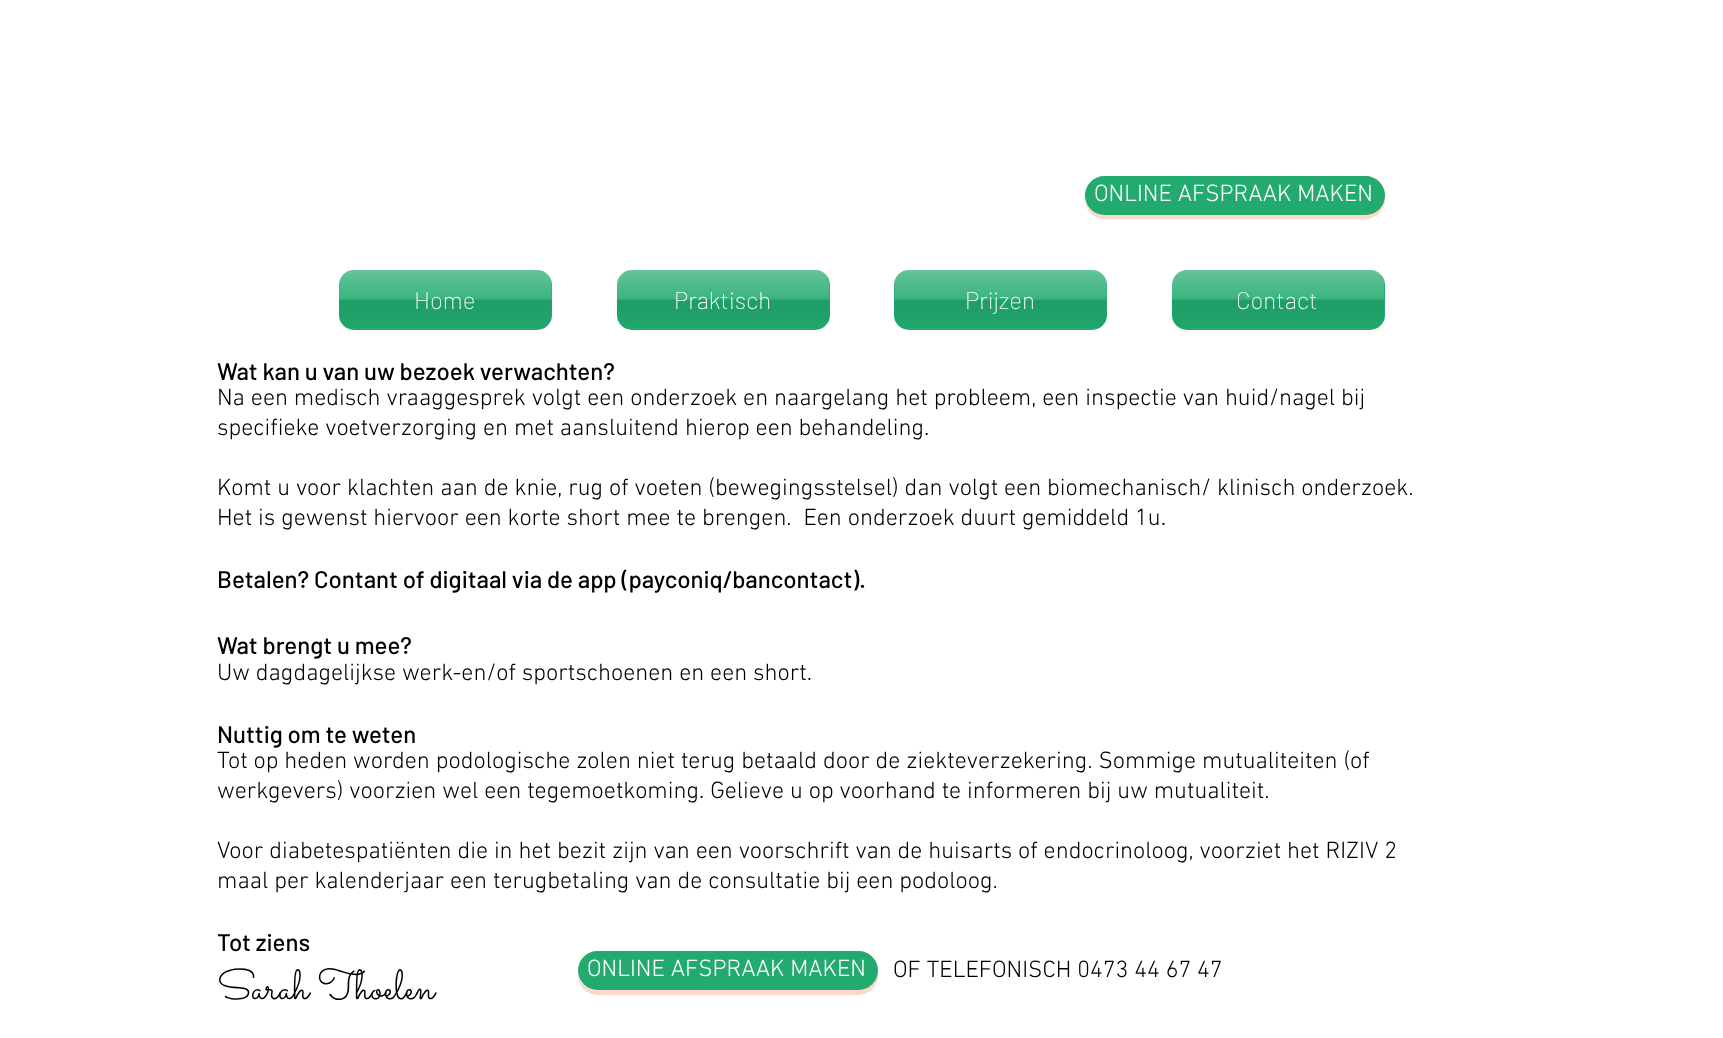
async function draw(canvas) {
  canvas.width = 1723
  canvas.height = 1038
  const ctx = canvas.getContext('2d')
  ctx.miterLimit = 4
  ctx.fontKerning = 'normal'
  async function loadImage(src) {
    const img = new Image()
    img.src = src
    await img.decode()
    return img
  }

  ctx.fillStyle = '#fff'
  ctx.fillRect(0, 0, 1723, 1038)
  ctx.fillStyle = '#ffd7c8'
  ctx.beginPath()
  ctx.moveTo(1085, 199)
  ctx.lineTo(1085, 200)
  ctx.bezierCurveTo(1085, 210, 1094, 219, 1104, 219)
  ctx.lineTo(1366, 219)
  ctx.bezierCurveTo(1376, 219, 1385, 210, 1385, 200)
  ctx.lineTo(1384, 195)
  ctx.bezierCurveTo(1384, 206, 1376, 214, 1365, 214)
  ctx.lineTo(1104, 214)
  ctx.bezierCurveTo(1095, 214, 1087, 208, 1085, 199)
  ctx.closePath()
  ctx.fill()
  ctx.fillStyle = '#22aa6f'
  ctx.beginPath()
  ctx.roundRect(1085, 176, 300, 39, 19.5)
  ctx.fill()
  ctx.font = '300 24px "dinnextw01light"'
  ctx.fillStyle = '#fff'
  ctx.fillText('ONLINE AFSPRAAK MAKEN', 1094, 201)
  ctx.fillStyle = '#22aa6f'
  ctx.beginPath()
  ctx.roundRect(339, 270, 213, 60, 15)
  ctx.fill()
  ctx.drawImage(await loadImage('image0.png'), 339, 270, 213, 58)
  ctx.font = '200 24px Barlow'
  ctx.fillStyle = '#fff'
  ctx.fillText('Home', 414, 309)
  ctx.fillStyle = '#22aa6f'
  ctx.beginPath()
  ctx.roundRect(617, 270, 213, 60, 15)
  ctx.fill()
  ctx.drawImage(await loadImage('image1.png'), 616, 270, 214, 58)
  ctx.fillStyle = '#fff'
  ctx.fillText('Praktisch', 674, 309)
  ctx.fillStyle = '#22aa6f'
  ctx.beginPath()
  ctx.roundRect(894, 270, 213, 60, 15)
  ctx.fill()
  ctx.drawImage(await loadImage('image0.png'), 894, 270, 213, 58)
  ctx.fillStyle = '#fff'
  ctx.fillText('Prijzen', 965, 309)
  ctx.fillStyle = '#22aa6f'
  ctx.beginPath()
  ctx.roundRect(1172, 270, 213, 60, 15)
  ctx.fill()
  ctx.drawImage(await loadImage('image2.png'), 1171, 270, 213, 58)
  ctx.fillStyle = '#fff'
  ctx.fillText('Contact', 1236, 309)
  ctx.font = '500 24px Barlow'
  ctx.fillStyle = '#000'
  ctx.fillText('Wat kan u van uw bezoek verwachten?', 217, 380)
  ctx.font = '300 24px "dinnextw01light"'
  ctx.fillText('Na een medisch vraaggesprek volgt een onderzoek en naargelang het probleem, een inspectie van huid/nagel bij', 217, 405)
  ctx.fillText('specifieke voetverzorging en met aansluitend hierop een behandeling.', 217, 435)
  ctx.fillText('Komt u voor klachten aan de knie, rug of voeten (bewegingsstelsel) dan volgt een biomechanisch/ klinisch onderzoek.', 217, 495)
  ctx.fillText('Het is gewenst hiervoor een korte short mee te brengen.  Een onderzoek duurt gemiddeld 1u.', 217, 525)
  ctx.font = '500 24px Barlow'
  ctx.fillText('Betalen? Contant of digitaal via de app (payconiq/bancontact).', 217, 588)
  ctx.fillText('Wat brengt u mee?', 217, 654)
  ctx.font = '300 24px "dinnextw01light"'
  ctx.fillText('Uw dagdagelijkse werk-en/of sportschoenen en een short.', 217, 680)
  ctx.font = '500 24px Barlow'
  ctx.fillText('Nuttig om te weten', 217, 743)
  ctx.font = '300 24px "dinnextw01light"'
  ctx.fillText('Tot op heden worden podologische zolen niet terug betaald door de ziekteverzekering. Sommige mutualiteiten (of', 217, 768)
  ctx.fillText('werkgevers) voorzien wel een tegemoetkoming. Gelieve u op voorhand te informeren bij uw mutualiteit.', 217, 798)
  ctx.fillText('Voor diabetespatiënten die in het bezit zijn van een voorschrift van de huisarts of endocrinoloog, voorziet het RIZIV 2', 217, 858)
  ctx.fillText('maal per kalenderjaar een terugbetaling van de consultatie bij een podoloog.', 217, 888)
  ctx.font = '500 24px Barlow'
  ctx.fillText('Tot ziens', 217, 951)
  ctx.font = '42px Sacramento'
  ctx.fillText('Sarah Thoelen', 217, 999)
  ctx.fillStyle = '#ffd7c8'
  ctx.beginPath()
  ctx.moveTo(578, 975)
  ctx.lineTo(578, 976)
  ctx.bezierCurveTo(578, 986, 587, 995, 598, 995)
  ctx.lineTo(858, 995)
  ctx.bezierCurveTo(869, 995, 878, 986, 878, 976)
  ctx.lineTo(877, 971)
  ctx.bezierCurveTo(877, 982, 869, 990, 858, 990)
  ctx.lineTo(597, 990)
  ctx.bezierCurveTo(588, 990, 580, 984, 578, 975)
  ctx.closePath()
  ctx.fill()
  ctx.fillStyle = '#22aa6f'
  ctx.beginPath()
  ctx.roundRect(578, 951, 300, 39, 19.5)
  ctx.fill()
  ctx.font = '300 24px "dinnextw01light"'
  ctx.fillStyle = '#fff'
  ctx.fillText('ONLINE AFSPRAAK MAKEN', 587, 976)
  ctx.fillStyle = '#000'
  ctx.fillText('OF TELEFONISCH 0473 44 67 47', 893, 977)
}

draw(document.querySelector('canvas'))
